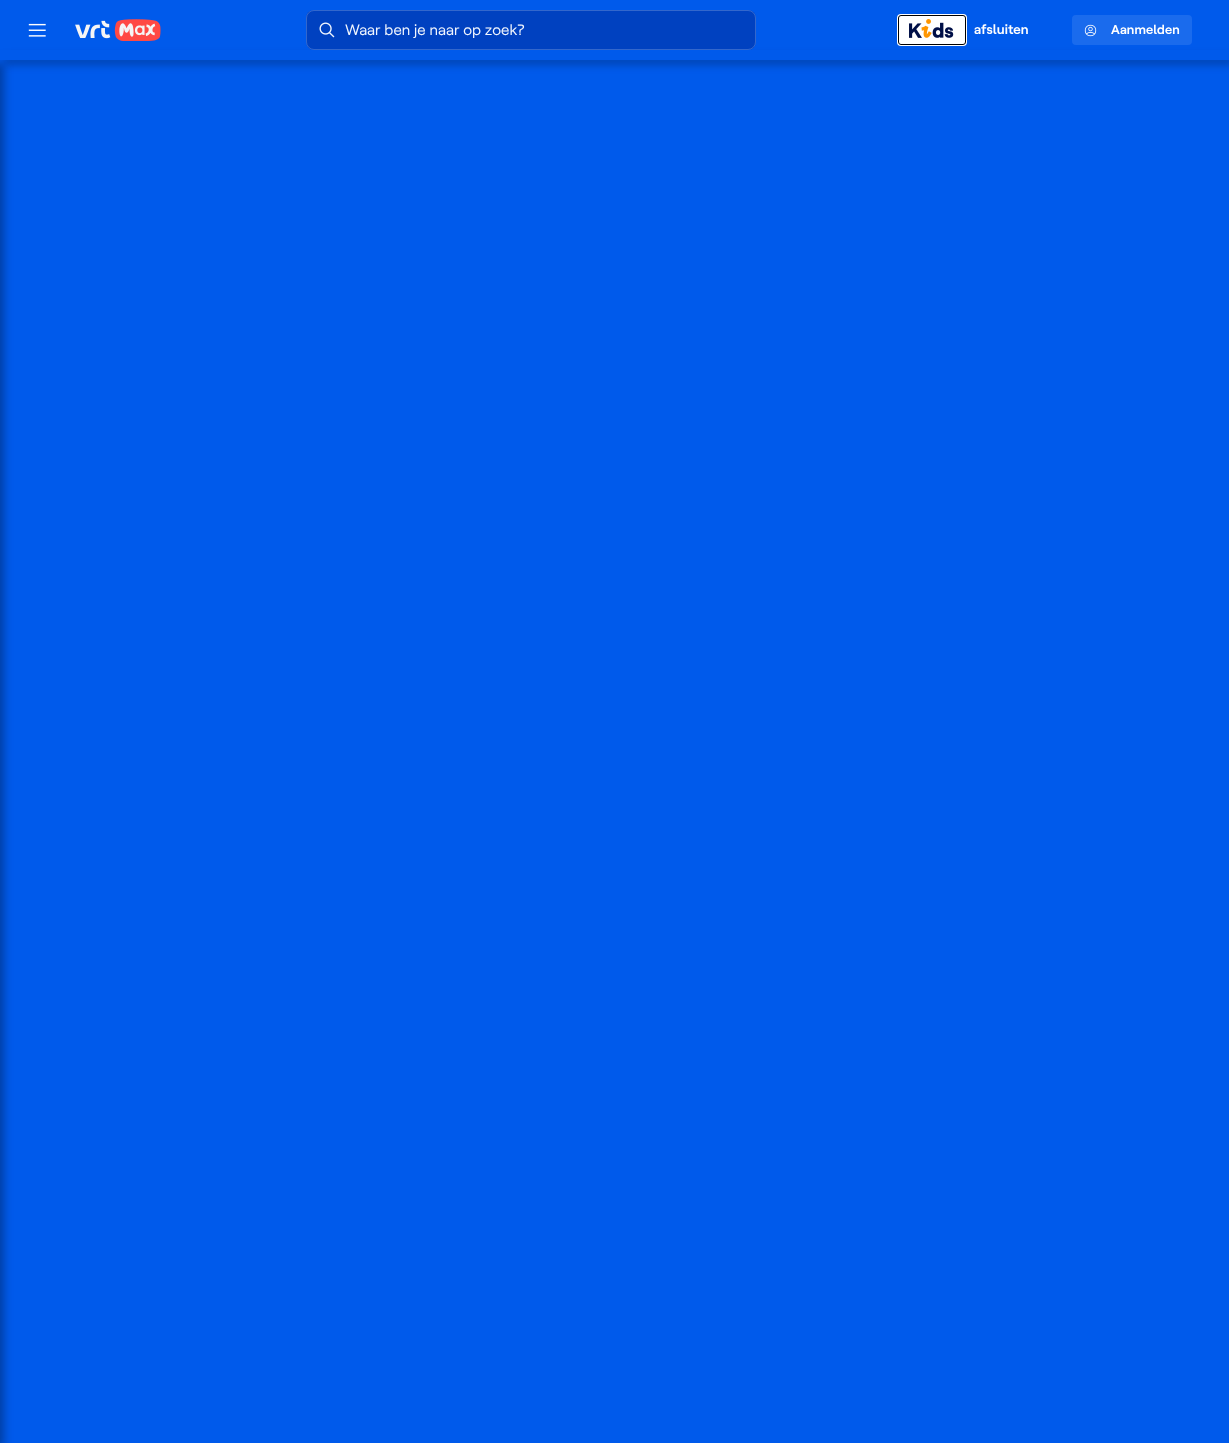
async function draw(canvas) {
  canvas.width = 1229
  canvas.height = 1443
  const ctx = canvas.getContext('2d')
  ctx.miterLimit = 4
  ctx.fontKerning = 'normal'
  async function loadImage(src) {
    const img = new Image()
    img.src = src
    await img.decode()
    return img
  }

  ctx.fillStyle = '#005aeb'
  ctx.fillRect(0, 0, 1229, 1443)
  ctx.fillStyle = '#0000004d'
  ctx.filter = 'blur(4px)'
  ctx.beginPath()
  ctx.rect(4, 57, 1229, 7)
  ctx.fill()
  ctx.filter = 'none'
  ctx.filter = 'blur(4px)'
  ctx.beginPath()
  ctx.rect(-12, 64, 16, 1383)
  ctx.fill()
  ctx.filter = 'none'
  ctx.fillStyle = '#005aeb'
  ctx.fillRect(0, 50, 1229, 10)
  ctx.drawImage(await loadImage('image0.png'), 28, 23, 18, 14)
  ctx.drawImage(await loadImage('image1.png'), 75, 19, 86, 22)
  ctx.fillStyle = '#0041c0'
  ctx.beginPath()
  ctx.roundRect(306, 10, 450, 40, 8)
  ctx.fill()
  ctx.beginPath()
  ctx.roundRect(306.5, 10.5, 449, 39, 7.5)
  ctx.strokeStyle = '#ffffff33'
  ctx.stroke()
  ctx.drawImage(await loadImage('image2.png'), 319, 22, 16, 16)
  ctx.letterSpacing = '0.1px'
  ctx.font = '15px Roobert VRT'
  ctx.fillStyle = '#f1f6fe'
  ctx.fillText('Waar ben je naar op zoek?', 345, 35)
  ctx.fillStyle = '#fff'
  ctx.beginPath()
  ctx.roundRect(897, 14, 70, 32, 4)
  ctx.fill()
  ctx.beginPath()
  ctx.roundRect(898.5, 15.5, 67, 29, 2.5)
  ctx.strokeStyle = '#000'
  ctx.stroke()
  ctx.drawImage(await loadImage('image3.png'), 909, 19, 45, 19)
  ctx.font = '600 13.5px Roobert VRT'
  ctx.fillText('afsluiten', 974, 34)
  ctx.fillStyle = '#1a6bed'
  ctx.beginPath()
  ctx.roundRect(1072, 15, 120, 30, 4)
  ctx.fill()
  ctx.drawImage(await loadImage('image4.png'), 1084, 24, 13, 13)
  ctx.font = '600 13px Roobert VRT'
  ctx.fillStyle = '#fff'
  ctx.fillText('Aanmelden', 1111, 34)
}

draw(document.querySelector('canvas'))
